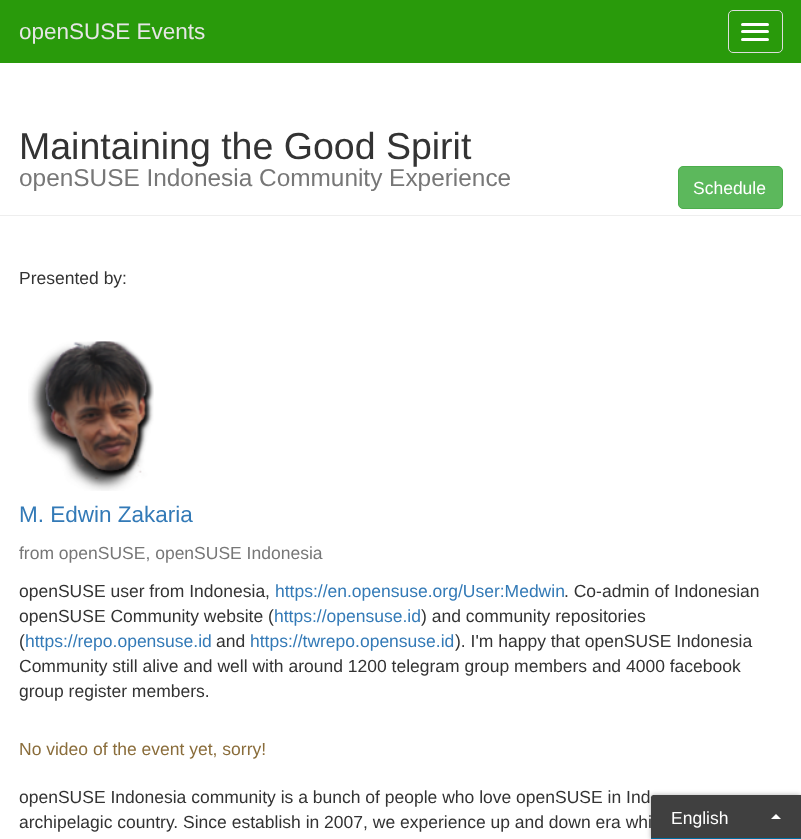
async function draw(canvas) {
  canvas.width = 801
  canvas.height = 839
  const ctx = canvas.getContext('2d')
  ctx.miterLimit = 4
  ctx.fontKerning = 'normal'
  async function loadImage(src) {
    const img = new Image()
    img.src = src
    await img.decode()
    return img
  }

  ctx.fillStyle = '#fff'
  ctx.fillRect(0, 0, 801, 839)
  ctx.fillStyle = '#299a0b'
  ctx.fillRect(0, 0, 801, 63)
  ctx.font = '22.5px Liberation Sans'
  ctx.fillStyle = '#e6e6e6'
  ctx.fillText('openSUSE Events', 19, 39)
  ctx.beginPath()
  ctx.roundRect(728.5, 10.5, 54, 42, 4.5)
  ctx.strokeStyle = '#ddd'
  ctx.stroke()
  ctx.fillStyle = '#fff'
  ctx.beginPath()
  ctx.roundRect(741, 23, 28, 3, 1.5)
  ctx.fill()
  ctx.beginPath()
  ctx.roundRect(741, 30, 28, 3, 1.5)
  ctx.fill()
  ctx.beginPath()
  ctx.roundRect(741, 38, 28, 3, 1.5)
  ctx.fill()
  ctx.fillStyle = '#eee'
  ctx.fillRect(0, 215, 801, 1)
  ctx.font = '37.5px Liberation Sans'
  ctx.fillStyle = '#333'
  ctx.fillText('Maintaining the Good Spirit', 19, 159)
  ctx.font = '24.4px Liberation Sans'
  ctx.fillStyle = '#777'
  ctx.fillText('openSUSE Indonesia Community Experience', 19, 186)
  ctx.fillStyle = '#5cb85c'
  ctx.beginPath()
  ctx.roundRect(678.5, 166.5, 104, 42, 4.5)
  ctx.fill()
  ctx.strokeStyle = '#4cae4c'
  ctx.stroke()
  ctx.font = '17.5px Liberation Sans'
  ctx.fillStyle = '#fff'
  ctx.fillText('Schedule', 693, 194)
  ctx.fillStyle = '#333'
  ctx.fillText('Presented by:', 19, 284)
  ctx.drawImage(await loadImage('image0.png'), 28, 341, 126, 150)
  ctx.font = '22.5px Liberation Sans'
  ctx.fillStyle = '#337ab7'
  ctx.fillText('M. Edwin Zakaria', 19, 522)
  ctx.font = '17.5px Liberation Sans'
  ctx.fillStyle = '#777'
  ctx.fillText('from openSUSE, openSUSE Indonesia', 19, 559)
  ctx.fillStyle = '#333'
  ctx.fillText('openSUSE user from Indonesia,', 19, 597)
  ctx.fillStyle = '#337ab7'
  ctx.fillText('https://en.opensuse.org/User:Medwin', 275, 597)
  ctx.fillStyle = '#333'
  ctx.fillText('. Co-admin of Indonesian', 564, 597)
  ctx.fillText('openSUSE Community website (', 19, 622)
  ctx.fillStyle = '#337ab7'
  ctx.fillText('https://opensuse.id', 274, 622)
  ctx.fillStyle = '#333'
  ctx.fillText(') and community repositories', 421, 622)
  ctx.fillText('(', 19, 647)
  ctx.fillStyle = '#337ab7'
  ctx.fillText('https://repo.opensuse.id', 25, 647)
  ctx.fillStyle = '#333'
  ctx.fillText('and', 216, 647)
  ctx.fillStyle = '#337ab7'
  ctx.fillText('https://twrepo.opensuse.id', 250, 647)
  ctx.fillStyle = '#333'
  ctx.fillText('). I\'m happy that openSUSE Indonesia', 455, 647)
  ctx.fillText('Community still alive and well with around 1200 telegram group members and 4000 facebook', 19, 672)
  ctx.fillText('group register members.', 19, 697)
  ctx.fillStyle = '#8a6d3b'
  ctx.fillText('No video of the event yet, sorry!', 19, 755)
  ctx.fillStyle = '#333'
  ctx.fillText('openSUSE Indonesia community is a bunch of people who love openSUSE in Ind', 19, 803)
  ctx.fillText('archipelagic country. Since establish in 2007, we experience up and down era whi', 19, 828)
  ctx.save()
  ctx.beginPath()
  ctx.moveTo(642, 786)
  ctx.lineTo(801, 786)
  ctx.lineTo(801, 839)
  ctx.lineTo(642, 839)
  ctx.closePath()
  ctx.moveTo(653.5, 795)
  ctx.lineTo(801, 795)
  ctx.lineTo(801, 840)
  ctx.lineTo(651, 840)
  ctx.lineTo(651, 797.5)
  ctx.bezierCurveTo(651, 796, 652, 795, 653.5, 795)
  ctx.closePath()
  ctx.clip('evenodd')
  ctx.fillStyle = '#0000004d'
  ctx.filter = 'blur(2.5px)'
  ctx.beginPath()
  ctx.roundRect(651, 795, 150, 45, 2.5)
  ctx.fill()
  ctx.filter = 'none'
  ctx.restore()
  ctx.fillStyle = '#000000bf'
  ctx.beginPath()
  ctx.moveTo(653.5, 795)
  ctx.lineTo(801, 795)
  ctx.lineTo(801, 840)
  ctx.lineTo(651, 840)
  ctx.lineTo(651, 797.5)
  ctx.bezierCurveTo(651, 796, 652, 795, 653.5, 795)
  ctx.closePath()
  ctx.fill()
  ctx.fillStyle = '#006f9f'
  ctx.fillRect(651, 838, 150, 1)
  ctx.fillStyle = '#fff'
  ctx.fillText('English', 671, 824)
  ctx.beginPath()
  ctx.moveTo(781, 819)
  ctx.lineTo(771, 819)
  ctx.lineTo(776, 814)
  ctx.closePath()
  ctx.fill()
}

draw(document.querySelector('canvas'))
